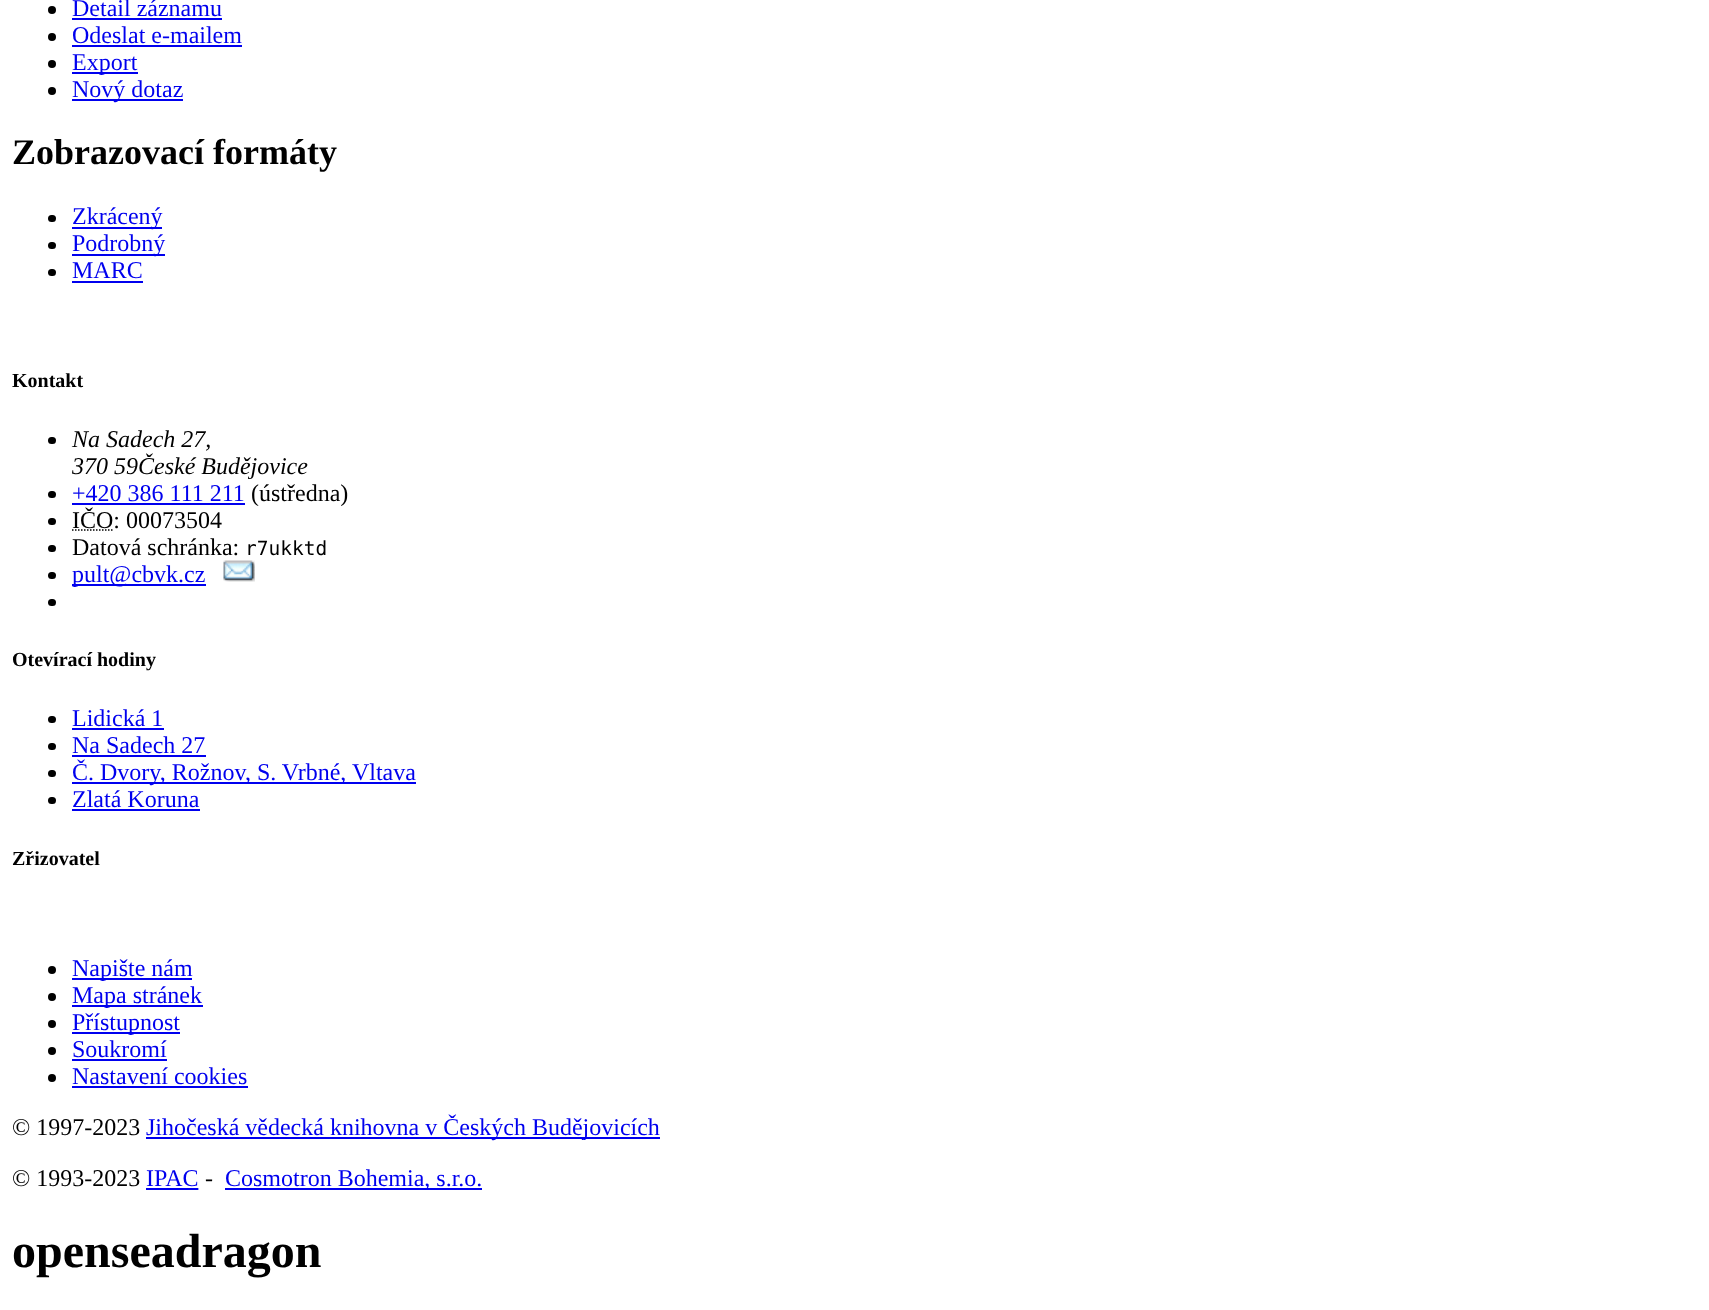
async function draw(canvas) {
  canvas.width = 1709
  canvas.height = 1310
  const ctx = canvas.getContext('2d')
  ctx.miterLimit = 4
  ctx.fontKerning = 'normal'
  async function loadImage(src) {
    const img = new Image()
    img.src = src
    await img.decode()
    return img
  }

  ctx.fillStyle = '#fff'
  ctx.fillRect(0, 0, 1709, 1310)
  ctx.fillStyle = '#000'
  ctx.beginPath()
  ctx.arc(52, 10, 4, 0, 2 * Math.PI)
  ctx.fill()
  ctx.font = '24px Liberation Serif'
  ctx.fillStyle = '#00e'
  ctx.fillText('Detail záznamu', 72, 16)
  ctx.fillRect(72, 18, 150, 2)
  ctx.fillStyle = '#000'
  ctx.beginPath()
  ctx.arc(52, 37, 4, 0, 2 * Math.PI)
  ctx.fill()
  ctx.fillStyle = '#00e'
  ctx.fillText('Odeslat e-mailem', 72, 43)
  ctx.fillRect(72, 45, 170, 2)
  ctx.fillStyle = '#000'
  ctx.beginPath()
  ctx.arc(52, 64, 4, 0, 2 * Math.PI)
  ctx.fill()
  ctx.fillStyle = '#00e'
  ctx.fillRect(72, 72, 66, 2)
  ctx.fillText('Export', 72, 70)
  ctx.fillStyle = '#000'
  ctx.beginPath()
  ctx.arc(52, 91, 4, 0, 2 * Math.PI)
  ctx.fill()
  ctx.fillStyle = '#00e'
  ctx.fillRect(72, 99, 111, 2)
  ctx.fillText('Nový dotaz', 72, 97)
  ctx.font = 'bold 36px Liberation Serif'
  ctx.fillStyle = '#000'
  ctx.fillText('Zobrazovací formáty', 12, 164)
  ctx.beginPath()
  ctx.roundRect(48, 215, 8, 7, 3.5)
  ctx.fill()
  ctx.fillStyle = '#00e'
  ctx.fillRect(72, 227, 90, 2)
  ctx.font = '24px Liberation Serif'
  ctx.fillText('Zkrácený', 72, 224)
  ctx.fillStyle = '#000'
  ctx.beginPath()
  ctx.roundRect(48, 242, 8, 7, 3.5)
  ctx.fill()
  ctx.fillStyle = '#00e'
  ctx.fillRect(72, 254, 93, 2)
  ctx.fillText('Podrobný', 72, 251)
  ctx.fillStyle = '#000'
  ctx.beginPath()
  ctx.roundRect(48, 269, 8, 7, 3.5)
  ctx.fill()
  ctx.fillStyle = '#00e'
  ctx.fillText('MARC', 72, 278)
  ctx.fillRect(72, 281, 71, 2)
  ctx.font = 'bold 20px Liberation Serif'
  ctx.fillStyle = '#000'
  ctx.fillText('Kontakt', 12, 387)
  ctx.beginPath()
  ctx.roundRect(48, 437, 8, 7, 3.5)
  ctx.fill()
  ctx.font = 'italic 24px Liberation Serif'
  ctx.fillText('Na Sadech 27,', 72, 447)
  ctx.fillText('370 59České Budějovice', 72, 474)
  ctx.beginPath()
  ctx.roundRect(48, 491, 8, 7, 3.5)
  ctx.fill()
  ctx.font = '24px Liberation Serif'
  ctx.fillStyle = '#00e'
  ctx.fillText('+420 386 111 211', 72, 501)
  ctx.fillRect(72, 503, 173, 2)
  ctx.fillStyle = '#000'
  ctx.fillText('(ústředna)', 251, 501)
  ctx.beginPath()
  ctx.roundRect(48, 518, 8, 7, 3.5)
  ctx.fill()
  ctx.fillText('IČO: 00073504', 72, 528)
  ctx.beginPath()
  ctx.moveTo(72, 530)
  ctx.lineTo(113.5, 530)
  ctx.strokeStyle = '#000'
  ctx.lineWidth = 1.5
  ctx.setLineDash([1.5, 1.5])
  ctx.stroke()
  ctx.beginPath()
  ctx.roundRect(48, 545, 8, 7, 3.5)
  ctx.fill()
  ctx.fillText('Datová schránka:', 72, 555)
  ctx.font = '19.5px DejaVu Sans Mono'
  ctx.fillText('r7ukktd', 245, 555)
  ctx.beginPath()
  ctx.roundRect(48, 572, 8, 7, 3.5)
  ctx.fill()
  ctx.fillStyle = '#00e'
  ctx.fillRect(72, 584, 134, 2)
  ctx.font = '24px Liberation Serif'
  ctx.fillText('pult@cbvk.cz', 72, 582)
  ctx.drawImage(await loadImage('image0.png'), 223, 560, 32, 22)
  ctx.fillStyle = '#000'
  ctx.beginPath()
  ctx.roundRect(48, 599, 8, 7, 3.5)
  ctx.fill()
  ctx.font = 'bold 20px Liberation Serif'
  ctx.fillText('Otevírací hodiny', 12, 666)
  ctx.beginPath()
  ctx.roundRect(48, 716, 8, 7, 3.5)
  ctx.fill()
  ctx.font = '24px Liberation Serif'
  ctx.fillStyle = '#00e'
  ctx.fillText('Lidická 1', 72, 726)
  ctx.fillRect(72, 728, 92, 2)
  ctx.fillStyle = '#000'
  ctx.beginPath()
  ctx.roundRect(48, 743, 8, 7, 3.5)
  ctx.fill()
  ctx.fillStyle = '#00e'
  ctx.fillText('Na Sadech 27', 72, 753)
  ctx.fillRect(72, 755, 134, 2)
  ctx.fillStyle = '#000'
  ctx.beginPath()
  ctx.roundRect(48, 770, 8, 7, 3.5)
  ctx.fill()
  ctx.fillStyle = '#00e'
  ctx.fillRect(72, 782, 344, 2)
  ctx.fillText('Č. Dvory, Rožnov, S. Vrbné, Vltava', 72, 780)
  ctx.fillStyle = '#000'
  ctx.beginPath()
  ctx.roundRect(48, 797, 8, 7, 3.5)
  ctx.fill()
  ctx.fillStyle = '#00e'
  ctx.fillText('Zlatá Koruna', 72, 807)
  ctx.fillRect(72, 809, 128, 2)
  ctx.font = 'bold 20px Liberation Serif'
  ctx.fillStyle = '#000'
  ctx.fillText('Zřizovatel', 12, 865)
  ctx.beginPath()
  ctx.arc(52, 970, 4, 0, 2 * Math.PI)
  ctx.fill()
  ctx.fillStyle = '#00e'
  ctx.fillRect(72, 978, 120, 2)
  ctx.font = '24px Liberation Serif'
  ctx.fillText('Napište nám', 72, 976)
  ctx.fillStyle = '#000'
  ctx.beginPath()
  ctx.arc(52, 997, 4, 0, 2 * Math.PI)
  ctx.fill()
  ctx.fillStyle = '#00e'
  ctx.fillRect(72, 1005, 131, 2)
  ctx.fillText('Mapa stránek', 72, 1003)
  ctx.fillStyle = '#000'
  ctx.beginPath()
  ctx.arc(52, 1024, 4, 0, 2 * Math.PI)
  ctx.fill()
  ctx.fillStyle = '#00e'
  ctx.fillRect(72, 1032, 108, 2)
  ctx.fillText('Přístupnost', 72, 1030)
  ctx.fillStyle = '#000'
  ctx.beginPath()
  ctx.arc(52, 1051, 4, 0, 2 * Math.PI)
  ctx.fill()
  ctx.fillStyle = '#00e'
  ctx.fillText('Soukromí', 72, 1057)
  ctx.fillRect(72, 1059, 95, 2)
  ctx.fillStyle = '#000'
  ctx.beginPath()
  ctx.arc(52, 1078, 4, 0, 2 * Math.PI)
  ctx.fill()
  ctx.fillStyle = '#00e'
  ctx.fillText('Nastavení cookies', 72, 1084)
  ctx.fillRect(72, 1086, 176, 2)
  ctx.fillStyle = '#000'
  ctx.fillText('© 1997-2023', 12, 1135)
  ctx.fillStyle = '#00e'
  ctx.fillRect(146, 1137, 514, 2)
  ctx.fillText('Jihočeská vědecká knihovna v Českých Budějovicích', 146, 1135)
  ctx.fillStyle = '#000'
  ctx.fillText('© 1993-2023', 12, 1186)
  ctx.fillStyle = '#00e'
  ctx.fillText('IPAC', 146, 1186)
  ctx.beginPath()
  ctx.moveTo(146, 1189)
  ctx.lineTo(198.5, 1189)
  ctx.strokeStyle = '#00e'
  ctx.stroke()
  ctx.fillRect(146, 1188, 52, 2)
  ctx.fillStyle = '#000'
  ctx.fillText('-', 205, 1186)
  ctx.fillStyle = '#00e'
  ctx.fillRect(225, 1188, 257, 2)
  ctx.fillText('Cosmotron Bohemia, s.r.o.', 225, 1186)
  ctx.font = 'bold 48px Liberation Serif'
  ctx.fillStyle = '#000'
  ctx.fillText('openseadragon', 12, 1267)
}

draw(document.querySelector('canvas'))
